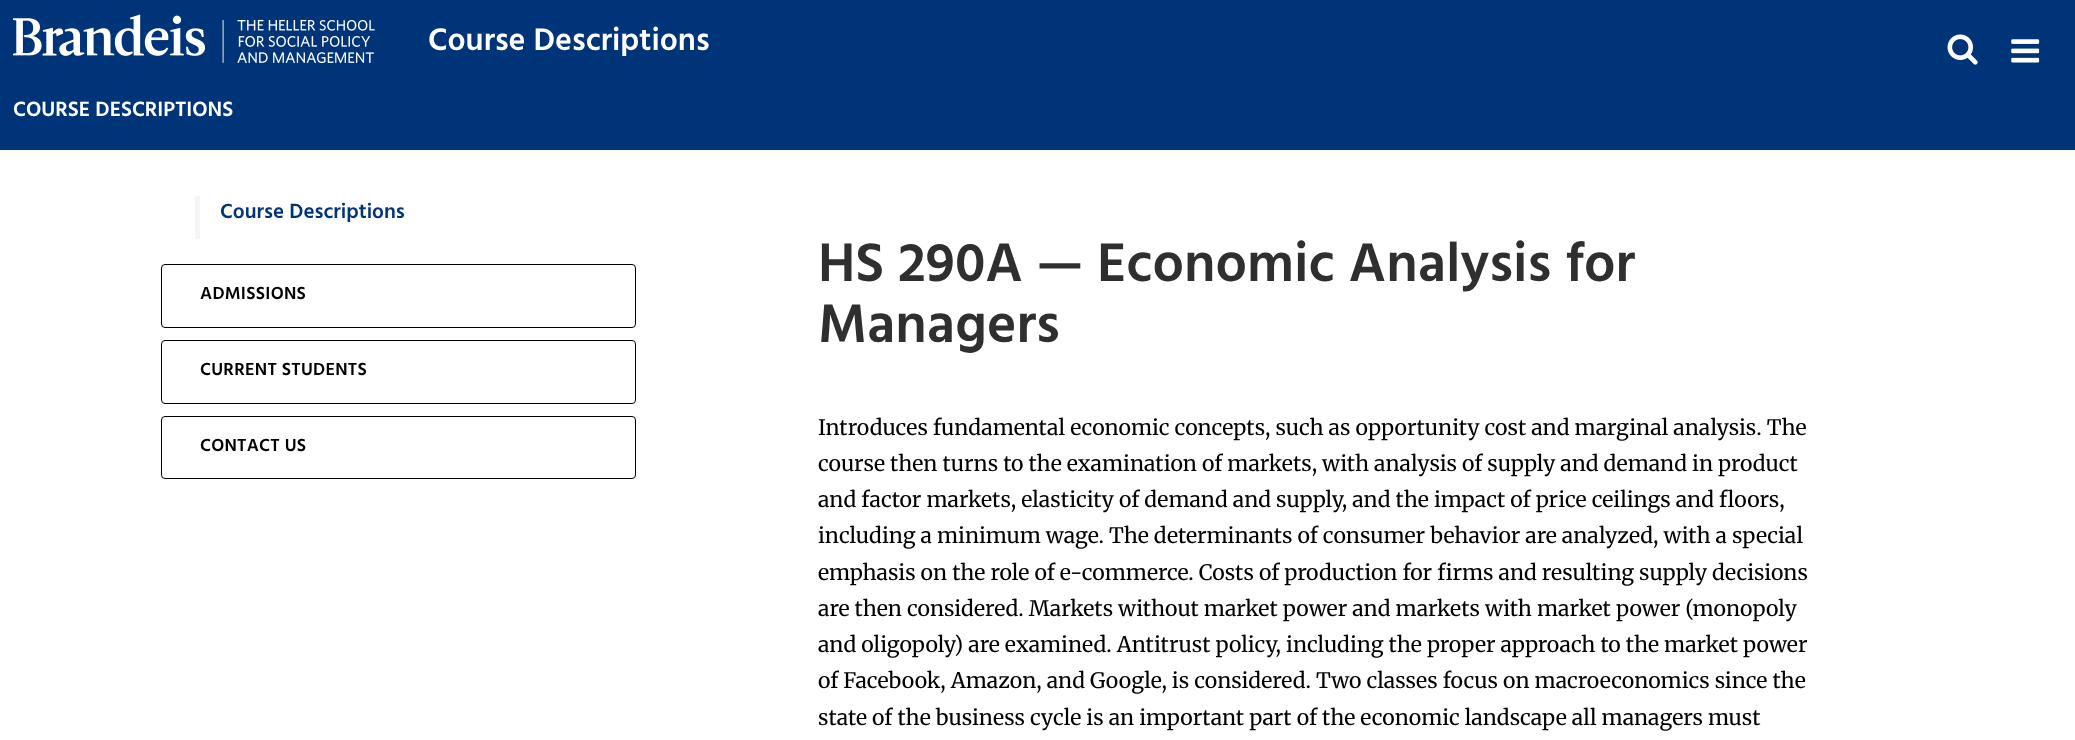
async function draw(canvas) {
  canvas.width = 2075
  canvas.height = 740
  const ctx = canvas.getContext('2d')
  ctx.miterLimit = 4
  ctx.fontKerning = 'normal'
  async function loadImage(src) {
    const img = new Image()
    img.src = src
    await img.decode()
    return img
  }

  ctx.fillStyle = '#fff'
  ctx.fillRect(0, 0, 2075, 740)
  ctx.fillStyle = '#003478'
  ctx.fillRect(0, 0, 2075, 150)
  ctx.drawImage(await loadImage('image0.png'), 13, 14, 362, 50)
  ctx.font = '600 32px Hind'
  ctx.fillStyle = '#fff'
  ctx.fillText('Course Descriptions', 428, 50)
  ctx.drawImage(await loadImage('image1.png'), 1947, 34, 31, 31)
  ctx.font = '600 21.25px Hind'
  ctx.fillText('COURSE DESCRIPTIONS', 13, 116)
  ctx.drawImage(await loadImage('image2.png'), 2011, 39, 29, 24)
  ctx.fillStyle = '#f5f5f5'
  ctx.fillRect(195, 196, 5, 43)
  ctx.font = '600 21px Hind'
  ctx.fillStyle = '#003478'
  ctx.fillText('Course Descriptions', 220, 218)
  ctx.beginPath()
  ctx.roundRect(161.5, 264.5, 474, 63, 3.5)
  ctx.strokeStyle = '#000'
  ctx.stroke()
  ctx.letterSpacing = '0.25px'
  ctx.font = '600 18px Hind'
  ctx.fillStyle = '#000'
  ctx.fillText('ADMISSIONS', 200, 299)
  ctx.beginPath()
  ctx.roundRect(161.5, 340.5, 474, 63, 3.5)
  ctx.stroke()
  ctx.fillText('CURRENT STUDENTS', 200, 375)
  ctx.beginPath()
  ctx.roundRect(161.5, 416.5, 474, 62, 3.5)
  ctx.stroke()
  ctx.fillText('CONTACT US', 200, 451)
  ctx.letterSpacing = '0px'
  ctx.font = '600 55.75px Hind'
  ctx.fillStyle = '#2f2f2f'
  ctx.fillText('HS 290A — Economic Analysis for', 818, 281)
  ctx.fillText('Managers', 818, 342)
  ctx.font = '21.25px Merriweather'
  ctx.fillStyle = '#000'
  ctx.fillText('Introduces fundamental economic concepts, such as opportunity cost and marginal analysis. The', 818, 435)
  ctx.fillText('course then turns to the examination of markets, with analysis of supply and demand in product', 818, 471)
  ctx.fillText('and factor markets, elasticity of demand and supply, and the impact of price ceilings and floors,', 818, 507)
  ctx.fillText('including a minimum wage. The determinants of consumer behavior are analyzed, with a special', 818, 543)
  ctx.fillText('emphasis on the role of e-commerce. Costs of production for firms and resulting supply decisions', 818, 580)
  ctx.fillText('are then considered. Markets without market power and markets with market power (monopoly', 818, 616)
  ctx.fillText('and oligopoly) are examined. Antitrust policy, including the proper approach to the market power', 818, 652)
  ctx.fillText('of Facebook, Amazon, and Google, is considered. Two classes focus on macroeconomics since the', 818, 688)
  ctx.fillText('state of the business cycle is an important part of the economic landscape all managers must', 818, 725)
}

draw(document.querySelector('canvas'))
